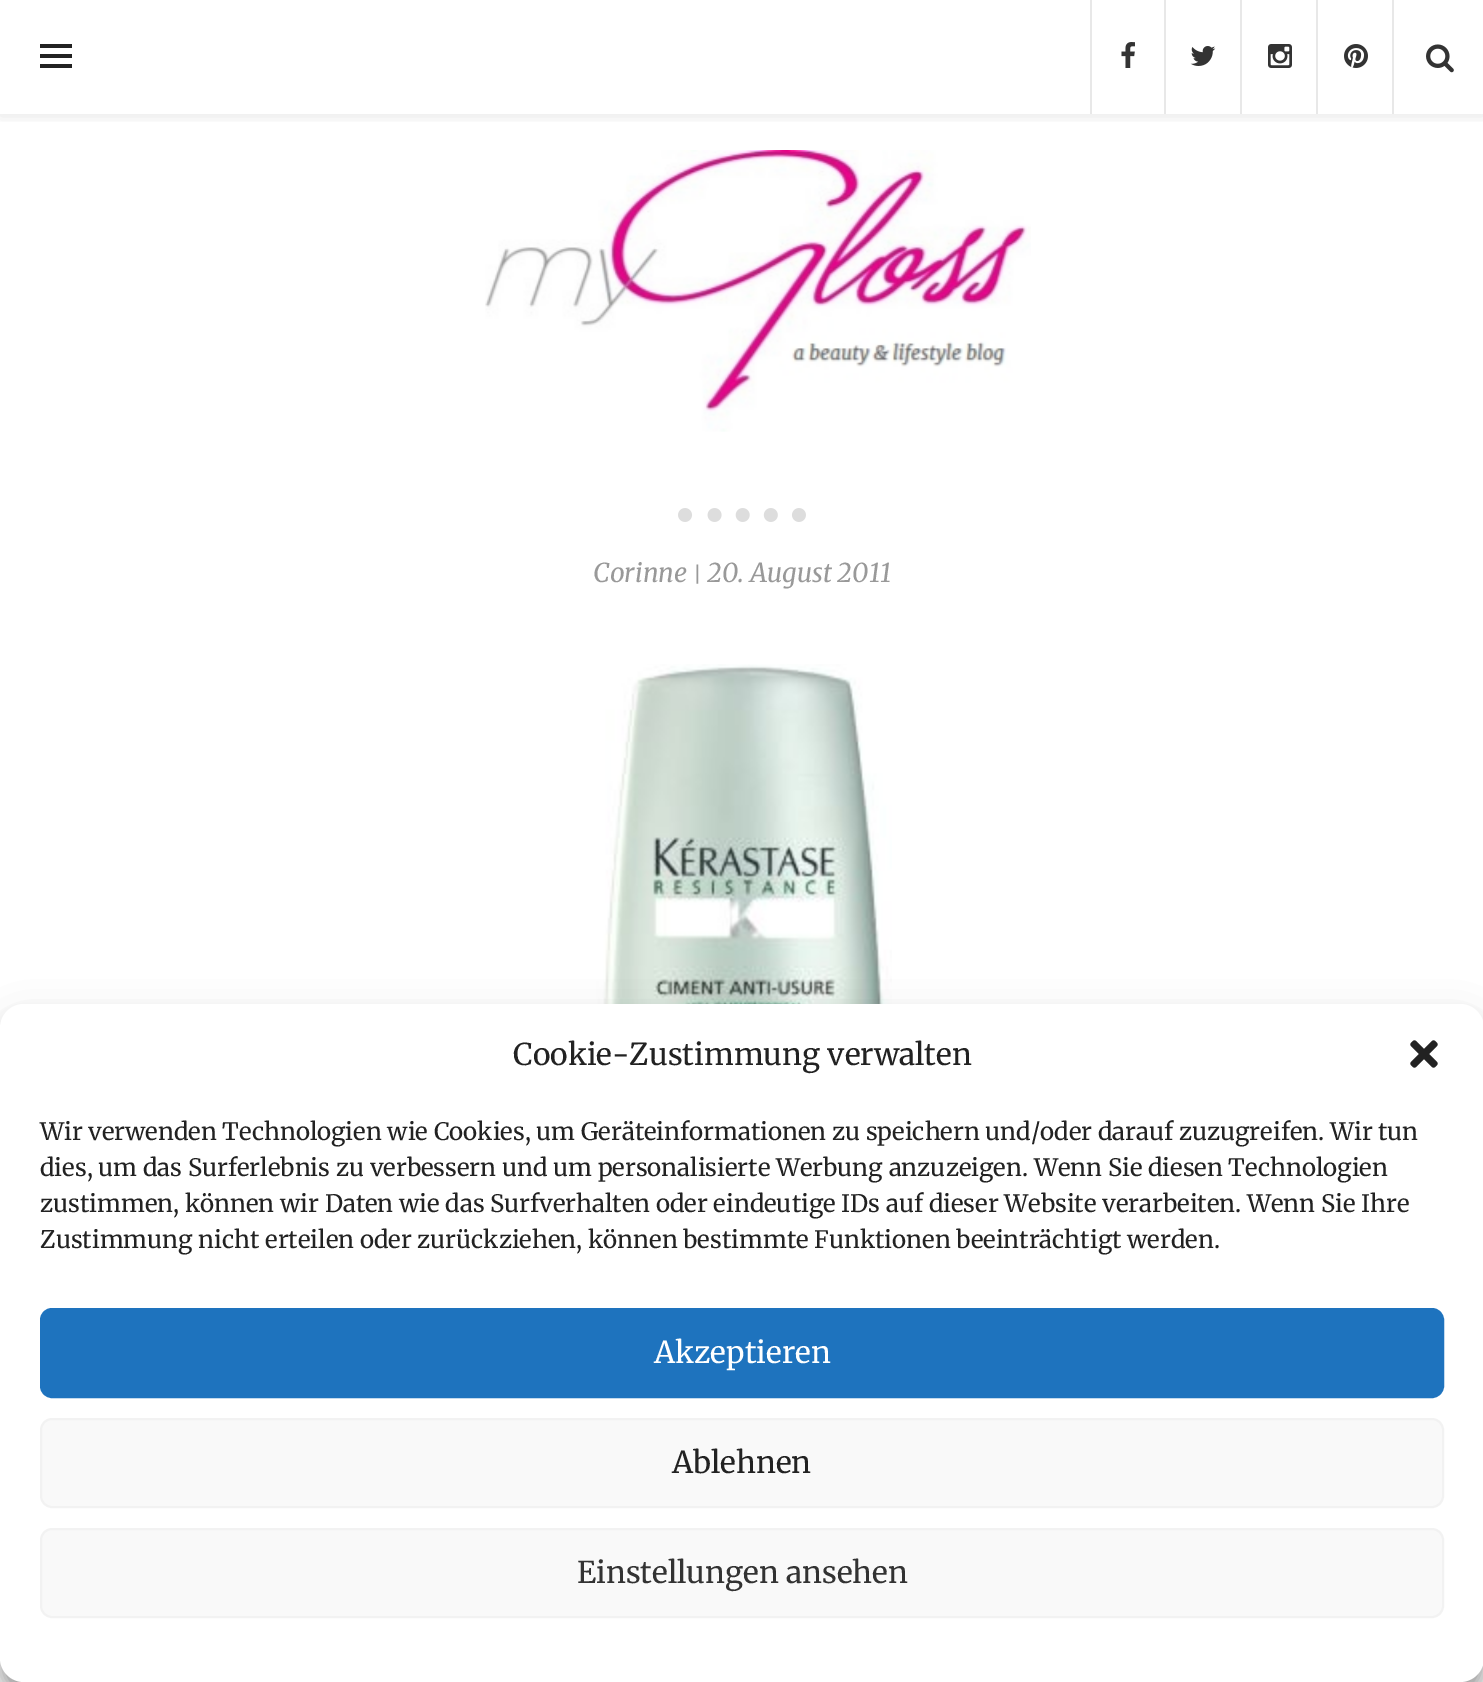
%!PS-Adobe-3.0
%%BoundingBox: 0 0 1483 1682
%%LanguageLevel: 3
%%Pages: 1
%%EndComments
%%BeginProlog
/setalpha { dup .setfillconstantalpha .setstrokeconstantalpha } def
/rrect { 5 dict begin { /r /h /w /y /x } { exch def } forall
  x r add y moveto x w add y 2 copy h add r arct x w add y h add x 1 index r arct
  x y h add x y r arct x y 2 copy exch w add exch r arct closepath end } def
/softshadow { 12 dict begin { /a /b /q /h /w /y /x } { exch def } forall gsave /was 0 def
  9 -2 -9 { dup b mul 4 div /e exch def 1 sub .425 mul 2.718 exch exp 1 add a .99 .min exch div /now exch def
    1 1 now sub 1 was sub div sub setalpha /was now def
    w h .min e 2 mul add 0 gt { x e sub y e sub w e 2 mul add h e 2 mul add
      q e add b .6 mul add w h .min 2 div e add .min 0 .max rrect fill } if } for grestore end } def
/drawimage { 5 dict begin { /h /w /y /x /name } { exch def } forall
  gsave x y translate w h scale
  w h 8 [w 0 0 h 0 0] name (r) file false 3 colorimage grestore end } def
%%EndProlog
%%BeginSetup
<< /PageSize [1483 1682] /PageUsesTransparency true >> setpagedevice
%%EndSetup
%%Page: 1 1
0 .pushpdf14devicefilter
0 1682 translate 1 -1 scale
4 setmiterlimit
1 setgray
0 0 1483 1682 rectfill
gsave
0 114 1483 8 rectclip
0 setgray
0 2 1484 114 0 7 0.1 softshadow
grestore
0.91 setgray
1164 0 2 114 rectfill
1090 0 2 114 rectfill
(images/1.raw) 1121 42 14 26 drawimage
1240 0 2 114 rectfill
(images/2.raw) 1190 46 26 20 drawimage
1316 0 2 114 rectfill
(images/3.raw) 1268 44 24 24 drawimage
1392 0 2 114 rectfill
(images/4.raw) 1344 44 24 24 drawimage
0.133 setgray
40 44 32 4 rectfill
40 54 32 4 rectfill
40 64 32 4 rectfill
(images/5.raw) 1426 44 28 29 drawimage
(images/6.raw) 485 150 546 282 drawimage
(images/7.raw) 678 508 128 14 drawimage
(images/8.raw) 596 664 296 340 drawimage
0 setgray
0 1016 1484 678 24 6 0.23 softshadow
0 1024 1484 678 24 20 0.19 softshadow
1 setgray
0 1004 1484 678 24 rrect fill
(images/9.raw) 1410 1040 28 28 drawimage
0.118 0.451 0.745 setrgbcolor
41 1309 1402 88 11 rrect gsave fill grestore
2 setlinewidth
stroke
0.976 setgray
41 1419 1402 88 11 rrect gsave fill grestore
0.949 setgray
stroke
0.976 setgray
41 1529 1402 88 11 rrect gsave fill grestore
0.949 setgray
stroke
/Merriweather-Italic [26 0 0 -26 0 0] selectfont
0.6 setgray
593 582 moveto (Corinne) show
/Merriweather-Italic [20 0 0 -20 0 0] selectfont
693 582 moveto (|) show
/Merriweather-Italic [26 0 0 -26 0 0] selectfont
707 582 moveto (20. August 2011) show
/Merriweather-Regular [30 0 0 -30 0 0] selectfont
0.133 setgray
513 1065 moveto (Cookie-Zustimmung verwalten) show
/Merriweather-Regular [24 0 0 -24 0 0] selectfont
40 1140 moveto (Wir verwenden Technologien wie Cookies, um Geräteinformationen zu speichern und/oder darauf zuzugreifen. Wir tun) show
40 1176 moveto (dies, um das Surferlebnis zu verbessern und um personalisierte Werbung anzuzeigen. Wenn Sie diesen Technologien) show
40 1212 moveto (zustimmen, können wir Daten wie das Surfverhalten oder eindeutige IDs auf dieser Website verarbeiten. Wenn Sie Ihre) show
40 1248 moveto (Zustimmung nicht erteilen oder zurückziehen, können bestimmte Funktionen beeinträchtigt werden.) show
/Merriweather-Regular [30 0 0 -30 0 0] selectfont
1 setgray
654 1363 moveto (Akzeptieren) show
0.133 setgray
672 1473 moveto (Ablehnen) show
0.2 setgray
577 1583 moveto (Einstellungen ansehen) show
.poppdf14devicefilter showpage
%%EOF
